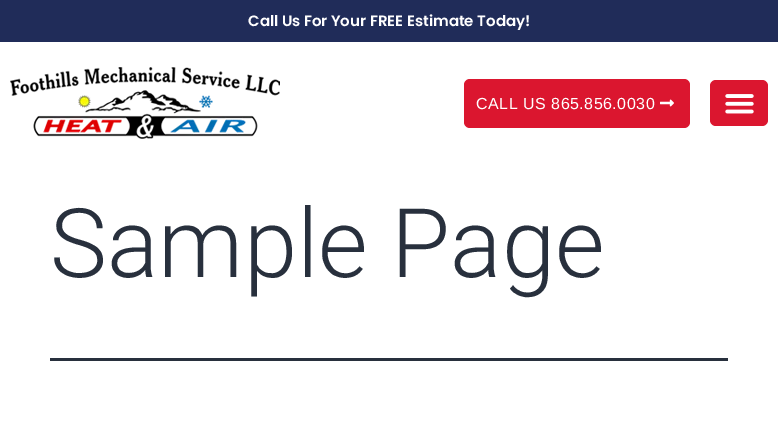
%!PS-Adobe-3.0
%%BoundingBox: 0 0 778 429
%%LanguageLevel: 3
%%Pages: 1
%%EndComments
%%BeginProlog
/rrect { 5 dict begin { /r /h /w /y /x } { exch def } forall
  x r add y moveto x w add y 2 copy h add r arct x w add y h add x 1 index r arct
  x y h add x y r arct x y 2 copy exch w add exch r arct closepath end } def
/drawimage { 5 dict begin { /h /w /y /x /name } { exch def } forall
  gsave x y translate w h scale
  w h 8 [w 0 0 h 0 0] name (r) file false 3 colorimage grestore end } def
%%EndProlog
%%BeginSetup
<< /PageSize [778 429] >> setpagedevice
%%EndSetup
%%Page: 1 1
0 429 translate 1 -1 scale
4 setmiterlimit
1 setgray
0 0 778 429 rectfill
0.125 0.173 0.349 setrgbcolor
0 0 778 42 rectfill
(images/1.raw) 10 67 270 72 drawimage
0.859 0.086 0.184 setrgbcolor
464 79 226 49 6 rrect fill
(images/2.raw) 660 99 14 8 drawimage
710 80 58 46 6 rrect fill
(images/3.raw) 725 94 29 20 drawimage
0.157 0.188 0.239 setrgbcolor
50 358 678 3 rectfill
/Poppins-SemiBold [15 0 0 -15 0 0] selectfont
1 setgray
248 26 moveto (Call Us For Your FREE Estimate Today!) show
/LiberationSans-Regular [16 0 0 -16 0 0] selectfont
476 109 moveto 0.5 0 (CALL US 865.856.0030) ashow
/Roboto-Light [96 0 0 -96 0 0] selectfont
0.157 0.188 0.239 setrgbcolor
50 277 moveto (Sample Page) show
showpage
%%EOF
